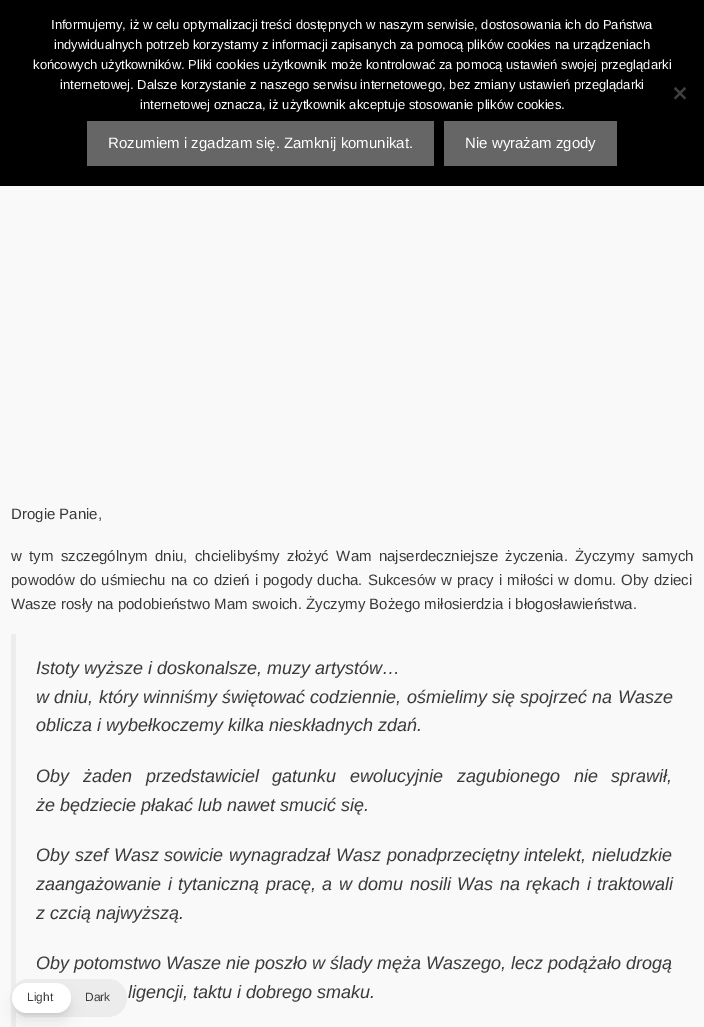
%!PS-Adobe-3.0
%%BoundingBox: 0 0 704 1027
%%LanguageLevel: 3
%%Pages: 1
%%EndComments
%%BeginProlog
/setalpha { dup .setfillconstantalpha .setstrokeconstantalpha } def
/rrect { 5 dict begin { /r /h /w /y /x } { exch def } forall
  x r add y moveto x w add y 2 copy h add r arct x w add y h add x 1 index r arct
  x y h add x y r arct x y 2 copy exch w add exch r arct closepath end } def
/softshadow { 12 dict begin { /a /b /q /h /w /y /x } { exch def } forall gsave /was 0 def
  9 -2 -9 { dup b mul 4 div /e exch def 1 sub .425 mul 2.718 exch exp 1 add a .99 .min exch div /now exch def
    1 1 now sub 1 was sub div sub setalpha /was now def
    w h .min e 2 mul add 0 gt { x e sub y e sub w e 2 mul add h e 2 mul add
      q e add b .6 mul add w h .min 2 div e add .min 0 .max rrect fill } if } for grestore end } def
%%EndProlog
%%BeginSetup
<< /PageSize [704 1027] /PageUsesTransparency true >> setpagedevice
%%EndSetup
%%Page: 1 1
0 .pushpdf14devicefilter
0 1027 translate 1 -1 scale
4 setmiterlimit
0.976 setgray
0 0 704 1027 rectfill
0 setgray
0 0 704 186 rectfill
0.251 setgray
newpath 684.5 87 moveto 686 88.5 lineto 675.5 99.5 lineto 674 98 lineto closepath fill
newpath 674 88.5 moveto 675.5 87 lineto 686 98 lineto 684.5 99.5 lineto closepath fill
0.4 setgray
87 121 347 45 rectfill
444 121 173 45 rectfill
0.929 setgray
11 634 5 393 rectfill
0.925 setgray
10 979 117 38 19 rrect fill
0 setgray
16 991 51 22 11 3 0.1 softshadow
15 996 53 24 12 7.5 0.1 softshadow
1 setgray
12 983 59 30 15 rrect fill
/LiberationSans-Regular [13 0 0 -13 0 0] selectfont
51 29 moveto (Informujemy, iż w celu optymalizacji treści dostępnych w naszym serwisie, dostosowania ich do Państwa) show
54 49 moveto (indywidualnych potrzeb korzystamy z informacji zapisanych za pomocą plików cookies na urządzeniach) show
33 69 moveto (końcowych użytkowników. Pliki cookies użytkownik może kontrolować za pomocą ustawień swojej przeglądarki) show
60 89 moveto (internetowej. Dalsze korzystanie z naszego serwisu internetowego, bez zmiany ustawień przeglądarki) show
140 109 moveto (internetowej oznacza, iż użytkownik akceptuje stosowanie plików cookies.) show
/LiberationSans-Regular [15 0 0 -15 0 0] selectfont
108 148 moveto (Rozumiem i zgadzam się. Zamknij komunikat.) show
465 148 moveto (Nie wyrażam zgody) show
0.227 setgray
11 519 moveto (Drogie Panie,) show
11 561 moveto 3.25 0 32 (w tym szczególnym dniu, chcielibyśmy złożyć Wam najserdeczniejsze życzenia. Życzymy samych) widthshow
11 585 moveto 1 0 32 (powodów do uśmiechu na co dzień i pogody ducha. Sukcesów w pracy i miłości w domu. Oby dzieci) widthshow
11 609 moveto (Wasze rosły na podobieństwo Mam swoich. Życzymy Bożego miłosierdzia i błogosławieństwa.) show
/LiberationSans-Italic [18 0 0 -18 0 0] selectfont
36 674 moveto (Istoty wyższe i doskonalsze, muzy artystów…) show
36 703 moveto 0.25 0 32 (w dniu, który winniśmy świętować codziennie, ośmielimy się spojrzeć na Wasze) widthshow
36 731 moveto (oblicza i wybełkoczemy kilka nieskładnych zdań.) show
36 782 moveto 8.75 0 32 (Oby żaden przedstawiciel gatunku ewolucyjnie zagubionego nie sprawił,) widthshow
36 811 moveto (że będziecie płakać lub nawet smucić się.) show
36 861 moveto 0.75 0 32 (Oby szef Wasz sowicie wynagradzał Wasz ponadprzeciętny intelekt, nieludzkie) widthshow
36 890 moveto 1.5 0 32 (zaangażowanie i tytaniczną pracę, a w domu nosili Was na rękach i traktowali) widthshow
36 919 moveto (z czcią najwyższą.) show
36 969 moveto (Oby potomstwo Wasze nie poszło w ślady męża Waszego, lecz podążało drogą) show
128 998 moveto (ligencji, taktu i dobrego smaku.) show
/LiberationSans-Regular [12 0 0 -12 0 0] selectfont
27 1001 moveto (Light) show
85 1001 moveto (Dark) show
.poppdf14devicefilter showpage
%%EOF
